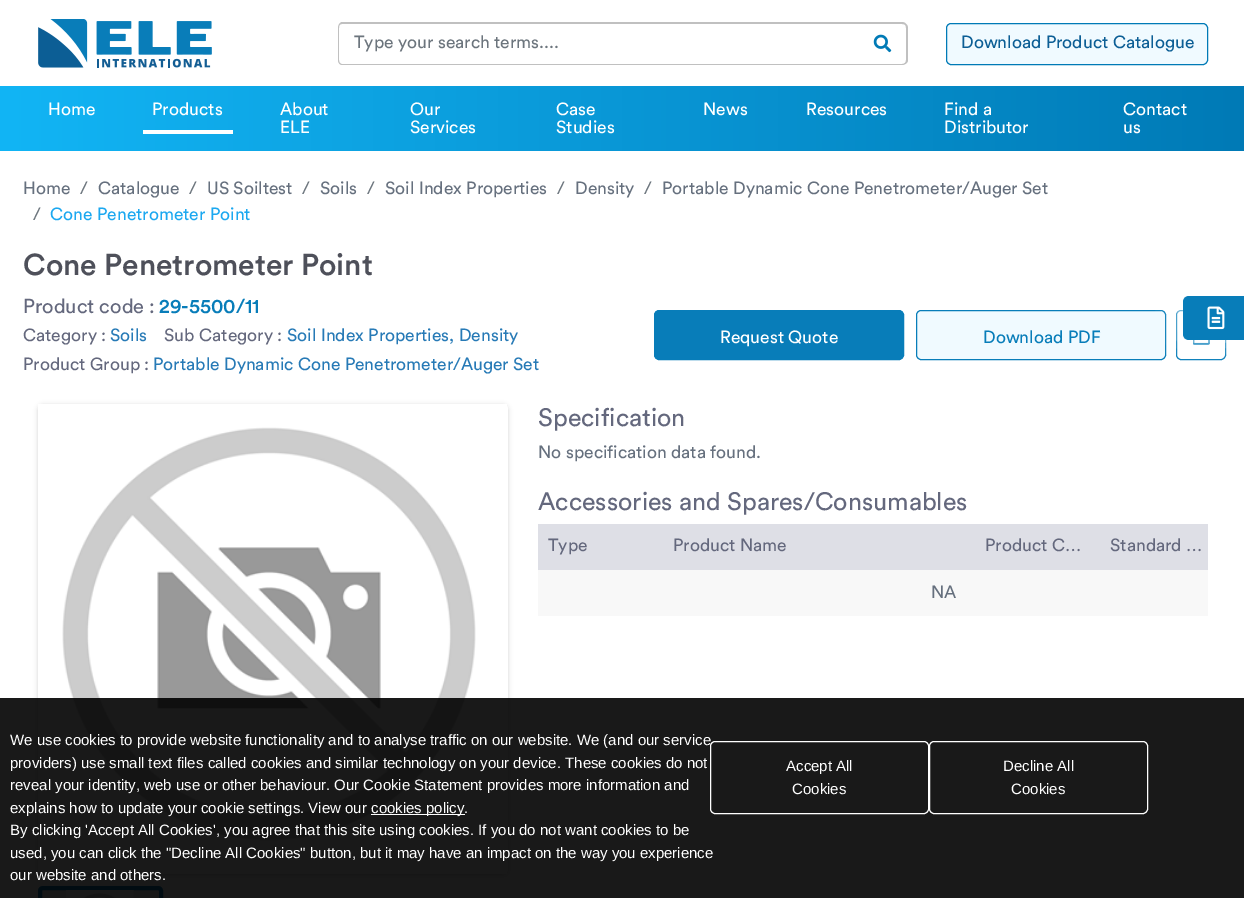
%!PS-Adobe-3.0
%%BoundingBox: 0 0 1244 898
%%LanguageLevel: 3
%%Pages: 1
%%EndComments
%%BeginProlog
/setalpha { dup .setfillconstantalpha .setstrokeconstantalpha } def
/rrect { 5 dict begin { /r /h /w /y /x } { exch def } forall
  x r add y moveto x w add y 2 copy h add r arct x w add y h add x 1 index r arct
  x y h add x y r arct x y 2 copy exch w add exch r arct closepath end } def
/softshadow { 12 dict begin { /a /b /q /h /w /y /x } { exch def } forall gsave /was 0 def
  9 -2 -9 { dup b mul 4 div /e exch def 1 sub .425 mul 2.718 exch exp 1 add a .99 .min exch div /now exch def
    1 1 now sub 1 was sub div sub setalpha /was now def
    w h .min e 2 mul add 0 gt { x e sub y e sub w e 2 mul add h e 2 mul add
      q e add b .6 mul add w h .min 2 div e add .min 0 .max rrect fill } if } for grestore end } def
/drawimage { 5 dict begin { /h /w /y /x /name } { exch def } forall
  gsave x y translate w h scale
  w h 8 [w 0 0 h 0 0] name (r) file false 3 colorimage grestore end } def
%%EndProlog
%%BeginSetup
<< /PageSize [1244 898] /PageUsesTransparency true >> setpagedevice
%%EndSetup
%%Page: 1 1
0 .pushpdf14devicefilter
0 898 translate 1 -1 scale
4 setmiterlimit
1 setgray
0 0 1244 898 rectfill
(images/1.raw) 38 19 174 49 drawimage
0.753 setgray
newpath 859 22 moveto 902 22 lineto 905 22 908 25 908 28 curveto 908 60 lineto 908 63 905 65 902 65 curveto 859 65 lineto closepath 859 24 moveto 902 24 lineto 905 24 906 25 906 28 curveto 906 60 lineto 906 62 905 64 902 64 curveto 859 64 lineto closepath eofill
newpath 342 22 moveto 860 22 lineto 860 65 lineto 342 65 lineto 340 65 338 63 338 60 curveto 338 28 lineto 338 25 340 22 342 22 curveto closepath 342 24 moveto 860 24 lineto 860 64 lineto 342 64 lineto 340 64 339 62 339 60 curveto 339 28 lineto 339 25 340 24 342 24 curveto closepath eofill
(images/2.raw) 873 34 19 19 drawimage
0.941 0.98 1 setrgbcolor
946.5 23.5 261 41 4.5 rrect gsave fill grestore
0 0.478 0.714 setrgbcolor
stroke
gsave newpath 0 86 moveto 1244 86 lineto 1244 151 lineto 0 151 lineto closepath clip newpath
<< /ShadingType 2 /ColorSpace /DeviceRGB /Coords [0 119 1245 119] /Extend [true true] /Function << /FunctionType 2 /Domain [0 1] /C0 [0.071 0.71 0.961] /C1 [0 0.478 0.714] /N 1 >> >> shfill grestore
1 setgray
143 130 90 4 rectfill
0.031 0.49 0.725 setrgbcolor
654.5 310.5 249 49 4.5 rrect gsave fill grestore
stroke
0.941 0.98 1 setrgbcolor
916.5 310.5 249 49 4.5 rrect gsave fill grestore
0.031 0.49 0.725 setrgbcolor
stroke
1176.5 310.5 49 49 4.5 rrect stroke
(images/3.raw) 1193 340 17 5 drawimage
1 setgray
1180 296 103 44 6 11 0.88 softshadow
0.031 0.49 0.725 setrgbcolor
newpath 1189 296 moveto 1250 296 lineto 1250 340 lineto 1189 340 lineto 1185.5 340 1183 337.5 1183 334 curveto 1183 302 lineto 1183 298.5 1185.5 296 1189 296 curveto closepath fill
(images/4.raw) 1207 306 18 24 drawimage
0 setgray
38 405 470 470 5 2.5 0.16 softshadow
1 setgray
38 404 470 470 5 rrect fill
(images/5.raw) 38 404 469 470 drawimage
0.937 setgray
40 888 121 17 3 rrect gsave fill grestore
0.031 0.49 0.725 setrgbcolor
4 setlinewidth
stroke
(images/6.raw) 66 890 68 8 drawimage
0.871 0.875 0.902 setrgbcolor
538 524 670 46 rectfill
0.973 setgray
538 570 670 46 rectfill
0.9 setalpha
0 setgray
0 698 1244 200 rectfill
1 setalpha
1 setgray
371 814 94 1 rectfill
1 setlinewidth
710.5 741.5 218 72 4.5 rrect stroke
929.5 741.5 218 72 4.5 rrect stroke
/Circular-Regular [17.5 0 0 -17.5 0 0] selectfont
0.424 0.459 0.49 setrgbcolor
354 48 moveto (Type your search terms....) show
0.047 0.369 0.584 setrgbcolor
961 48 moveto (Download Product Catalogue) show
1 setgray
48 115 moveto (Home) show
152 115 moveto (Products) show
280 115 moveto (About) show
280 133 moveto (ELE) show
410 115 moveto (Our) show
410 133 moveto (Services) show
556 115 moveto (Case) show
556 133 moveto (Studies) show
703 115 moveto (News) show
806 115 moveto (Resources) show
944 115 moveto (Find a) show
944 133 moveto (Distributor) show
1123 115 moveto (Contact) show
1123 133 moveto (us) show
0.4 0.439 0.494 setrgbcolor
23 194 moveto (Home) show
0.424 0.459 0.49 setrgbcolor
80 194 moveto (/) show
0.4 0.439 0.494 setrgbcolor
98 194 moveto (Catalogue) show
0.424 0.459 0.49 setrgbcolor
189 194 moveto (/) show
0.4 0.439 0.494 setrgbcolor
207 194 moveto (US Soiltest) show
0.424 0.459 0.49 setrgbcolor
302 194 moveto (/) show
0.4 0.439 0.494 setrgbcolor
320 194 moveto (Soils) show
0.424 0.459 0.49 setrgbcolor
367 194 moveto (/) show
0.4 0.439 0.494 setrgbcolor
385 194 moveto (Soil Index Properties) show
0.424 0.459 0.49 setrgbcolor
557 194 moveto (/) show
0.4 0.439 0.494 setrgbcolor
575 194 moveto (Density) show
0.424 0.459 0.49 setrgbcolor
644 194 moveto (/) show
0.4 0.439 0.494 setrgbcolor
662 194 moveto (Portable Dynamic Cone Penetrometer/Auger Set) show
0.424 0.459 0.49 setrgbcolor
33 220 moveto (/) show
0.11 0.659 0.941 setrgbcolor
50 220 moveto (Cone Penetrometer Point) show
/Circular-Medium [30 0 0 -30 0 0] selectfont
0.306 0.314 0.353 setrgbcolor
23 275 moveto (Cone Penetrometer Point) show
/Circular-Regular [20 0 0 -20 0 0] selectfont
0.392 0.408 0.49 setrgbcolor
23 313 moveto (Product code :) show
/Circular-Medium [20 0 0 -20 0 0] selectfont
0.031 0.49 0.725 setrgbcolor
159 313 moveto (29-5500/11) show
/Circular-Regular [17.5 0 0 -17.5 0 0] selectfont
0.392 0.408 0.49 setrgbcolor
23 341 moveto (Category :) show
0.153 0.478 0.714 setrgbcolor
110 341 moveto (Soils) show
0.392 0.408 0.49 setrgbcolor
164 341 moveto (Sub Category :) show
0.153 0.478 0.714 setrgbcolor
287 341 moveto (Soil Index Properties, Density) show
0.392 0.408 0.49 setrgbcolor
23 370 moveto (Product Group :) show
0.153 0.478 0.714 setrgbcolor
153 370 moveto (Portable Dynamic Cone Penetrometer/Auger Set) show
1 setgray
720 343 moveto (Request Quote) show
0.031 0.49 0.725 setrgbcolor
983 343 moveto (Download PDF) show
/Circular-Regular [25 0 0 -25 0 0] selectfont
0.392 0.408 0.49 setrgbcolor
538 426 moveto (Specification) show
/Circular-Regular [17.5 0 0 -17.5 0 0] selectfont
0.4 0.439 0.494 setrgbcolor
538 458 moveto (No specification data found.) show
/Circular-Regular [25 0 0 -25 0 0] selectfont
0.392 0.408 0.49 setrgbcolor
538 510 moveto (Accessories and Spares/Consumables) show
/Circular-Regular [17.5 0 0 -17.5 0 0] selectfont
548 551 moveto (Type) show
673 551 moveto (Product Name) show
985 551 moveto (Product C…) show
1110 551 moveto (Standard …) show
0.4 0.439 0.494 setrgbcolor
931 598 moveto (NA) show
/LiberationSans-Regular [15 0 0 -15 0 0] selectfont
1 setgray
10 745 moveto (We use cookies to provide website functionality and to analyse traffic on our website. We \(and our service) show
10 768 moveto (providers\) use small text files called cookies and similar technology on your device. These cookies do not) show
10 790 moveto (reveal your identity, web use or other behaviour. Our Cookie Statement provides more information and) show
10 813 moveto (explains how to update your cookie settings. View our) show
371 813 moveto (cookies policy.) show
10 835 moveto (By clicking 'Accept All Cookies', you agree that this site using cookies. If you do not want cookies to be) show
10 858 moveto (used, you can click the "Decline All Cookies" button, but it may have an impact on the way you experience) show
10 880 moveto (our website and others.) show
786 771 moveto (Accept All) show
792 794 moveto (Cookies) show
1003 771 moveto (Decline All) show
1011 794 moveto (Cookies) show
.poppdf14devicefilter showpage
%%EOF
